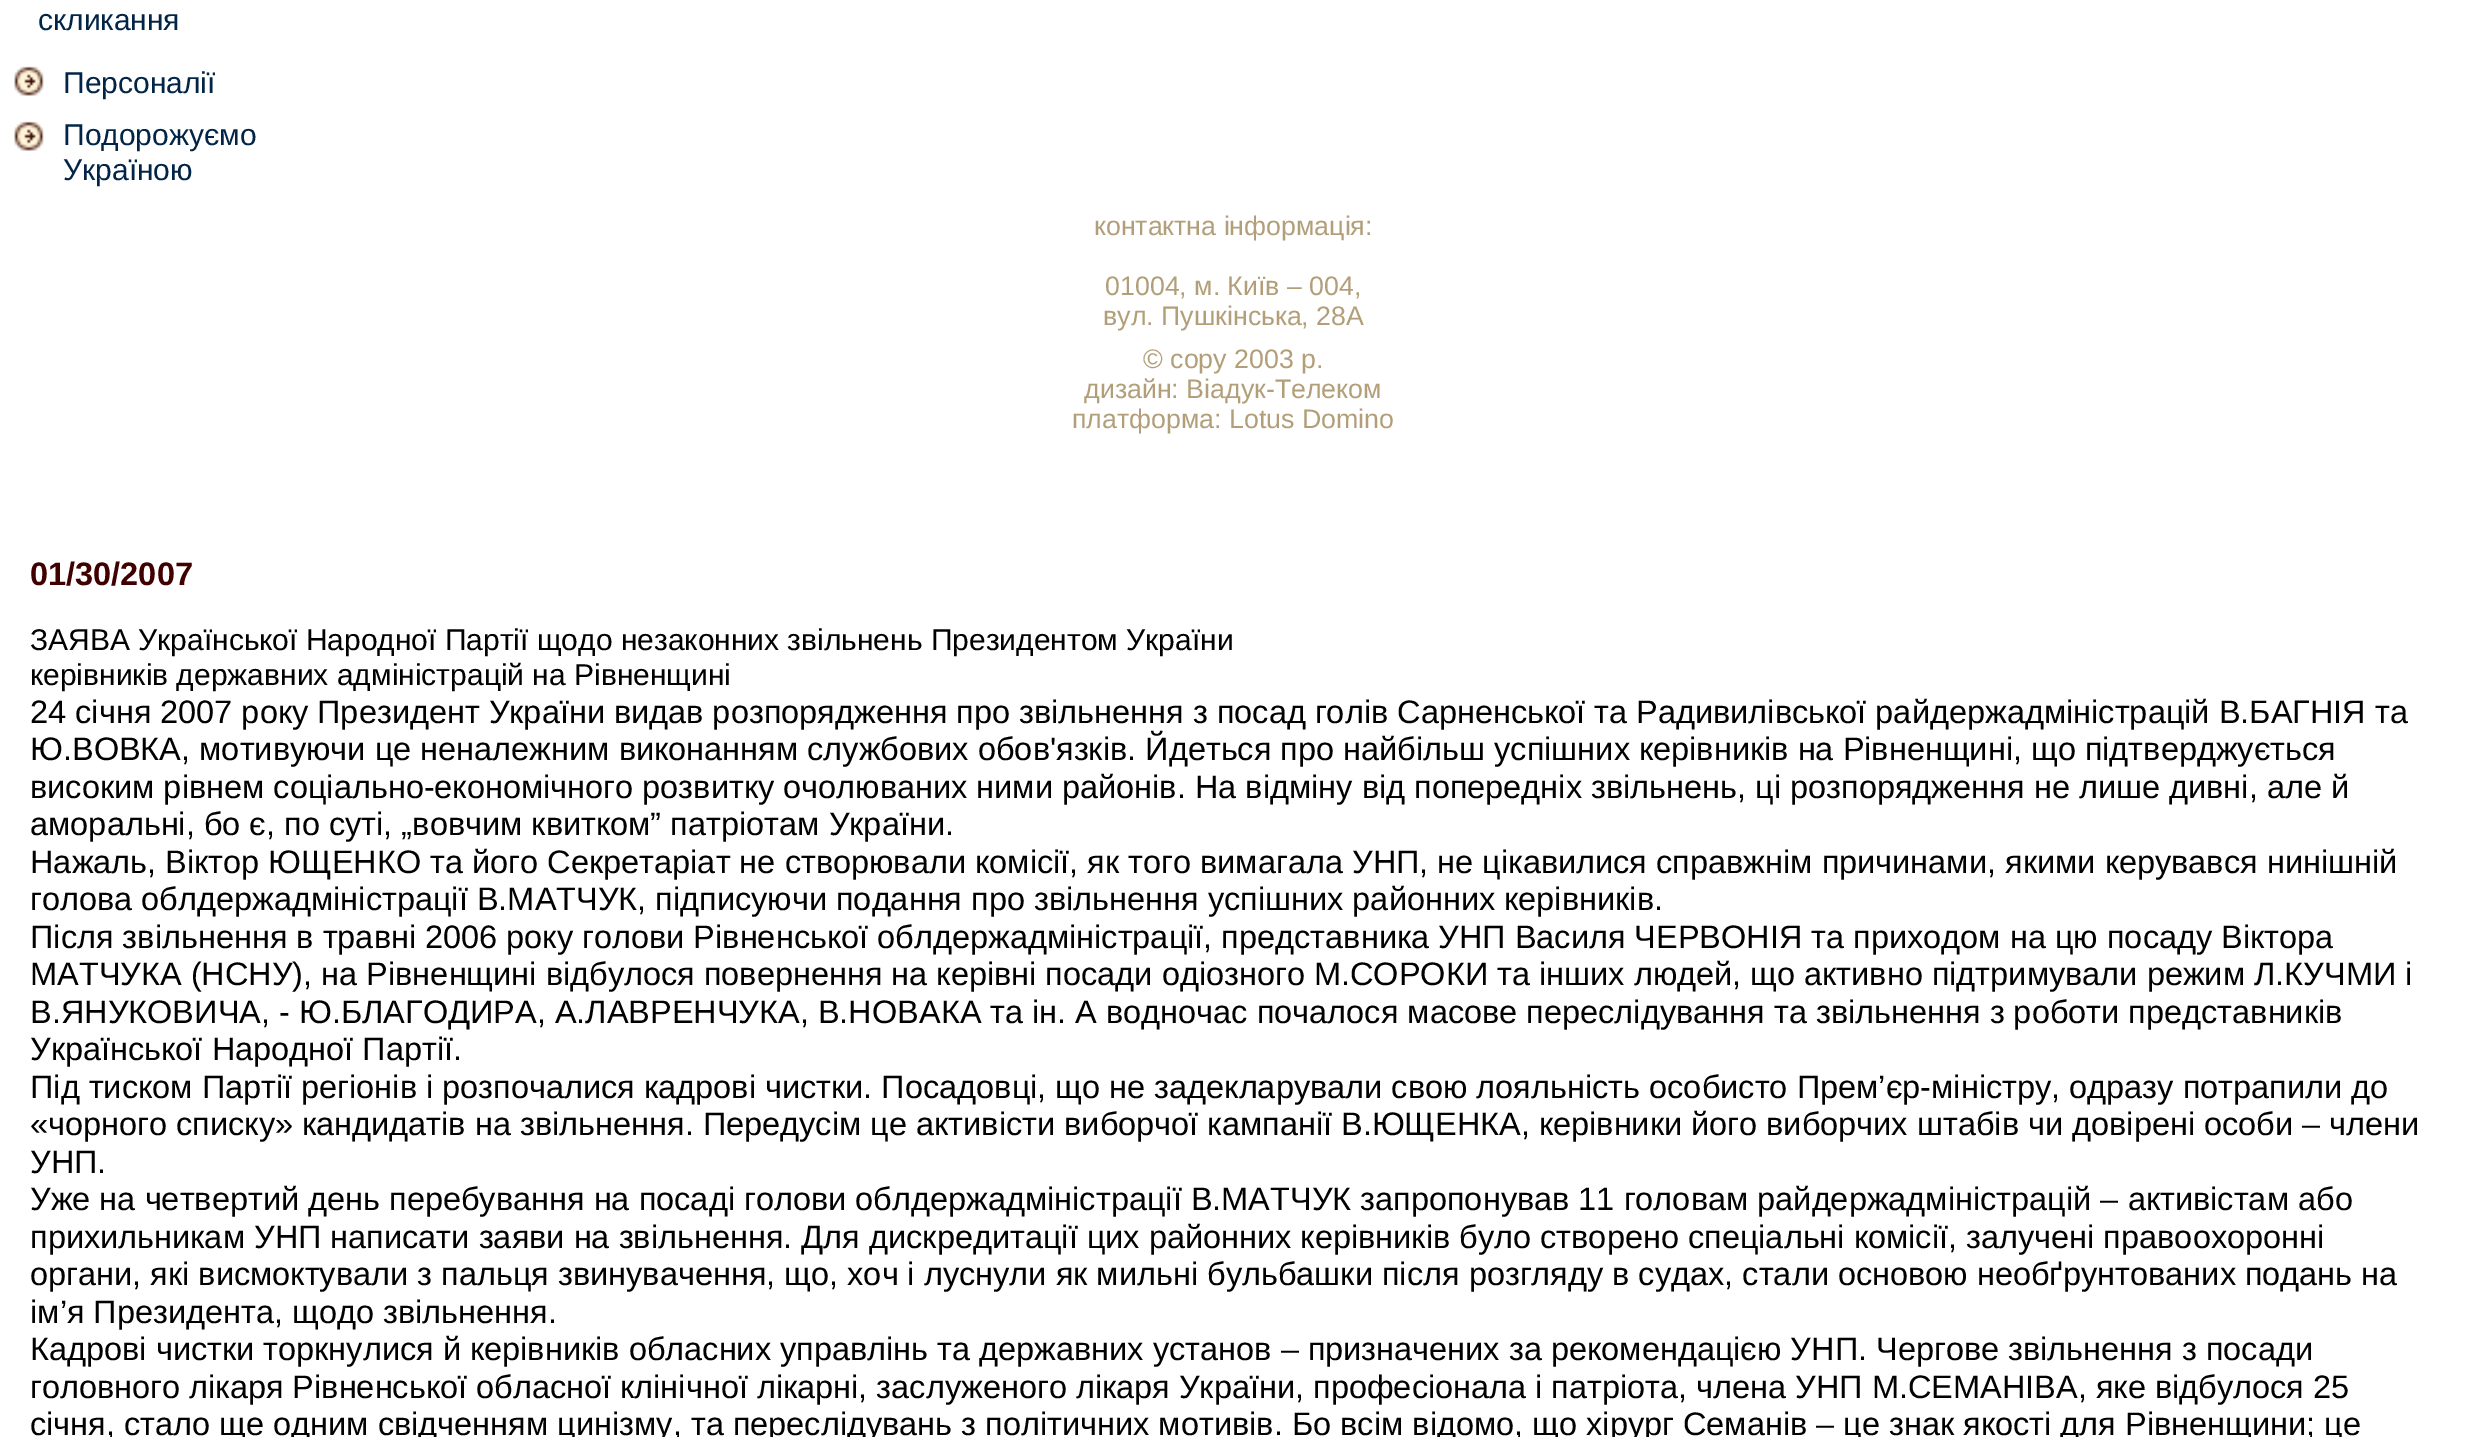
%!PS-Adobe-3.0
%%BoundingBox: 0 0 2465 1437
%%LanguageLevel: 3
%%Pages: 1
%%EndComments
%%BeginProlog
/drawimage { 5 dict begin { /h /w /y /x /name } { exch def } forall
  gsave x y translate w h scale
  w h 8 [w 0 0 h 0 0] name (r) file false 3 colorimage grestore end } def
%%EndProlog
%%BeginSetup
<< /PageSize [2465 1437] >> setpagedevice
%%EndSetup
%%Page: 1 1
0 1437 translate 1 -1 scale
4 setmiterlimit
1 setgray
0 0 2465 1437 rectfill
(images/1.raw) 14 66 30 30 drawimage
(images/1.raw) 14 121 30 30 drawimage
/LiberationSans-Regular [30 0 0 -30 0 0] selectfont
0.004 0.141 0.278 setrgbcolor
38 30 moveto (скликання) show
63 93 moveto (Персоналії) show
63 145 moveto (Подорожуємо) show
63 180 moveto (Україною) show
/LiberationSans-Regular [26.75 0 0 -26.75 0 0] selectfont
0.698 0.624 0.475 setrgbcolor
1094 235 moveto (контактна інформація:) show
1105 295 moveto (01004, м. Київ – 004,) show
1103 325 moveto (вул. Пушкінська, 28А) show
1143 368 moveto (© copy 2003 р.) show
1084 398 moveto (дизайн: Віадук-Телеком) show
1072 428 moveto (платформа: Lotus Domino) show
/LiberationSans-Bold [32.5 0 0 -32.5 0 0] selectfont
0.251 0 0 setrgbcolor
30 585 moveto (01/30/2007) show
/LiberationSans-Regular [30 0 0 -30 0 0] selectfont
0 setgray
30 650 moveto (ЗАЯВА Української Народної Партії щодо незаконних звільнень Президентом України) show
30 685 moveto (керівників державних адміністрацій на Рівненщині) show
/LiberationSans-Regular [32.5 0 0 -32.5 0 0] selectfont
30 723 moveto (24 січня 2007 року Президент України видав розпорядження про звільнення з посад голів Сарненської та Радивилівської райдержадміністрацій В.БАГНІЯ та) show
30 760 moveto (Ю.ВОВКА, мотивуючи це неналежним виконанням службових обов'язків. Йдеться про найбільш успішних керівників на Рівненщині, що підтверджується) show
30 798 moveto (високим рівнем соціально-економічного розвитку очолюваних ними районів. На відміну від попередніх звільнень, ці розпорядження не лише дивні, але й) show
30 835 moveto (аморальні, бо є, по суті, „вовчим квитком” патріотам України.) show
30 873 moveto (Нажаль, Віктор ЮЩЕНКО та його Секретаріат не створювали комісії, як того вимагала УНП, не цікавилися справжнім причинами, якими керувався нинішній) show
30 910 moveto (голова облдержадміністрації В.МАТЧУК, підписуючи подання про звільнення успішних районних керівників.) show
30 948 moveto (Після звільнення в травні 2006 року голови Рівненської облдержадміністрації, представника УНП Василя ЧЕРВОНІЯ та приходом на цю посаду Віктора) show
30 985 moveto (МАТЧУКА \(НСНУ\), на Рівненщині відбулося повернення на керівні посади одіозного М.СОРОКИ та інших людей, що активно підтримували режим Л.КУЧМИ і) show
30 1023 moveto (В.ЯНУКОВИЧА, - Ю.БЛАГОДИРА, А.ЛАВРЕНЧУКА, В.НОВАКА та ін. А водночас почалося масове переслідування та звільнення з роботи представників) show
30 1060 moveto (Української Народної Партії.) show
30 1098 moveto (Під тиском Партії регіонів і розпочалися кадрові чистки. Посадовці, що не задекларували свою лояльність особисто Прем’єр-міністру, одразу потрапили до) show
30 1135 moveto («чорного списку» кандидатів на звільнення. Передусім це активісти виборчої кампанії В.ЮЩЕНКА, керівники його виборчих штабів чи довірені особи – члени) show
30 1173 moveto (УНП.) show
30 1210 moveto (Уже на четвертий день перебування на посаді голови облдержадміністрації В.МАТЧУК запропонував 11 головам райдержадміністрацій – активістам або) show
30 1248 moveto (прихильникам УНП написати заяви на звільнення. Для дискредитації цих районних керівників було створено спеціальні комісії, залучені правоохоронні) show
30 1285 moveto (органи, які висмоктували з пальця звинувачення, що, хоч і луснули як мильні бульбашки після розгляду в судах, стали основою необґрунтованих подань на) show
30 1323 moveto (ім’я Президента, щодо звільнення.) show
30 1360 moveto (Кадрові чистки торкнулися й керівників обласних управлінь та державних установ – призначених за рекомендацією УНП. Чергове звільнення з посади) show
30 1398 moveto (головного лікаря Рівненської обласної клінічної лікарні, заслуженого лікаря України, професіонала і патріота, члена УНП М.СЕМАНІВА, яке відбулося 25) show
30 1435 moveto (січня, стало ще одним свідченням цинізму, та переслідувань з політичних мотивів. Бо всім відомо, що хірург Семанів – це знак якості для Рівненщини; це) show
showpage
%%EOF
